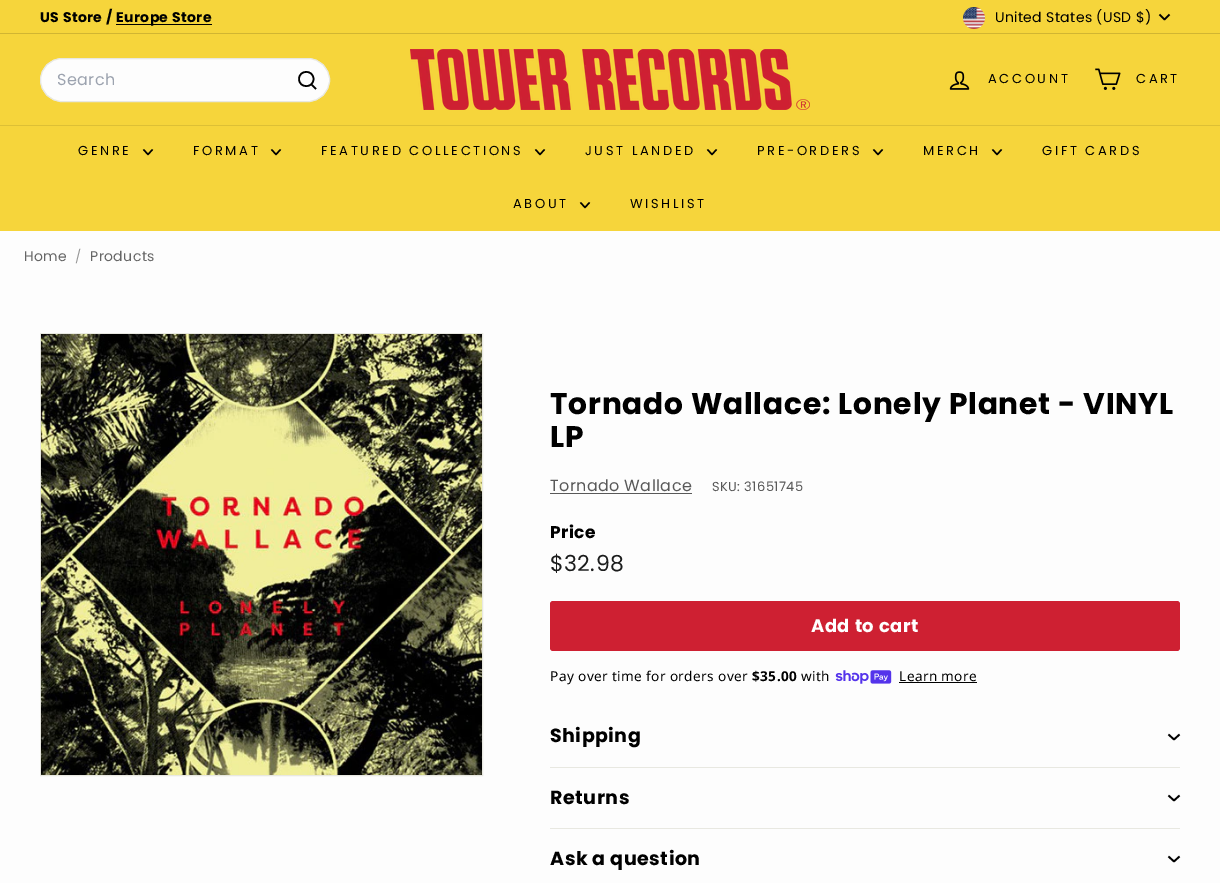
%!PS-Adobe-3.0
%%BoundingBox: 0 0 1220 883
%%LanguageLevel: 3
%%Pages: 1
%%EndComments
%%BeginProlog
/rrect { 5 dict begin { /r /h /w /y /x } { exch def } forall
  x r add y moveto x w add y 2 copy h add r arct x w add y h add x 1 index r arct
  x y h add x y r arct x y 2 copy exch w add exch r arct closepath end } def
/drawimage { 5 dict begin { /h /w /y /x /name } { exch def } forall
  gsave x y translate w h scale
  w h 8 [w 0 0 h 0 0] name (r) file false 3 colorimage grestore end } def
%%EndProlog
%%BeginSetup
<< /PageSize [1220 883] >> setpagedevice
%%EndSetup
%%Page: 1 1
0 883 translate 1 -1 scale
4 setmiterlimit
0.992 setgray
0 0 1220 883 rectfill
0.965 0.835 0.231 setrgbcolor
0 0 1220 33 rectfill
0 setgray
116 24 96 1 rectfill
(images/1.raw) 963 7 22 22 drawimage
1.6 setlinewidth
1 setlinejoin
newpath 1159.5 14.5 moveto 1164.5 19.5 lineto 1169.5 14.5 lineto stroke
0.82 0.71 0.196 setrgbcolor
0 33 1220 1 rectfill
0.965 0.835 0.231 setrgbcolor
0 34 1220 91 rectfill
0.992 setgray
40.5 58.5 289 43 21.5 rrect gsave fill grestore
0.91 0.91 0.882 setrgbcolor
1 setlinewidth
0 setlinejoin
stroke
0 setgray
1.6 setlinewidth
1 setlinejoin
newpath 313.5 79 moveto 313.5 88.5 299 88.5 299 79 curveto 299 69.5 313.5 69.5 313.5 79 curveto 316 89 moveto 311.5 84.5 lineto stroke
(images/2.raw) 410 49 400 61 drawimage
(images/3.raw) 949 71 21 19 drawimage
(images/4.raw) 1095 68 26 22 drawimage
0.965 0.835 0.231 setrgbcolor
0 126 1220 105 rectfill
0.867 0.753 0.208 setrgbcolor
0 125 1220 1 rectfill
0 setgray
1.4 setlinewidth
newpath 143.5 149.5 moveto 148 154.5 lineto 152.5 149.5 lineto stroke
newpath 271.5 149.5 moveto 276 154.5 lineto 280.5 149.5 lineto stroke
newpath 535.5 149.5 moveto 540 154.5 lineto 544.5 149.5 lineto stroke
newpath 707.5 149.5 moveto 712 154.5 lineto 716.5 149.5 lineto stroke
newpath 873.5 149.5 moveto 878 154.5 lineto 882.5 149.5 lineto stroke
newpath 992.5 149.5 moveto 997 154.5 lineto 1001.5 149.5 lineto stroke
newpath 580.5 202.5 moveto 585 207.5 lineto 589.5 202.5 lineto stroke
0.91 0.91 0.882 setrgbcolor
1 setlinewidth
0 setlinejoin
40.5 333.5 442 442 rectstroke
(images/5.raw) 41 334 441 441 drawimage
0.349 setgray
550 493 142 1 rectfill
0.808 0.125 0.196 setrgbcolor
550 601 630 50 3 rrect fill
(images/6.raw) 835 670 57 14 drawimage
0 setgray
899 682 78 1 rectfill
0.91 0.91 0.882 setrgbcolor
550 767 630 1 rectfill
0 setgray
1.7 setlinewidth
1 setlinejoin
newpath 1168.5 734.5 moveto 1174 739.5 lineto 1179.5 734.5 lineto stroke
0.91 0.91 0.882 setrgbcolor
550 828 630 1 rectfill
0 setgray
newpath 1168.5 795.5 moveto 1174 800.5 lineto 1179.5 795.5 lineto stroke
newpath 1168.5 856.5 moveto 1174 861.5 lineto 1179.5 856.5 lineto stroke
/Poppins-Bold [14 0 0 -14 0 0] selectfont
40 22 moveto 0.4 0 (US Store /) ashow
116 22 moveto 0.4 0 (Europe Store) ashow
/Poppins-Regular [14 0 0 -14 0 0] selectfont
995 22 moveto 0.35 0 (United States \(USD $\)) ashow
/Poppins-Regular [16 0 0 -16 0 0] selectfont
0.612 0.639 0.686 setrgbcolor
57 85 moveto 0.4 0 (Search) ashow
/Poppins-Regular [13 0 0 -13 0 0] selectfont
0 setgray
988 83 moveto 2.6 0 (ACCOUNT) ashow
1136 83 moveto 2.6 0 (CART) ashow
78 155 moveto 2.6 0 (GENRE) ashow
193 155 moveto 2.6 0 (FORMAT) ashow
321 155 moveto 2.6 0 (FEATURED COLLECTIONS) ashow
585 155 moveto 2.6 0 (JUST LANDED) ashow
757 155 moveto 2.6 0 (PRE-ORDERS) ashow
923 155 moveto 2.6 0 (MERCH) ashow
1042 155 moveto 2.6 0 (GIFT CARDS) ashow
513 208 moveto 2.6 0 (ABOUT) ashow
630 208 moveto 2.6 0 (WISHLIST) ashow
/Poppins-Regular [14 0 0 -14 0 0] selectfont
0.4 setgray
24 261 moveto 0.4 0 (Home) ashow
/Poppins-Regular [13 0 0 -13 0 0] selectfont
0.6 setgray
75 261 moveto 0.4 0 (/) ashow
/Poppins-Regular [14 0 0 -14 0 0] selectfont
0.4 setgray
90 261 moveto 0.4 0 (Products) ashow
/Poppins-Bold [29.75 0 0 -29.75 0 0] selectfont
0 setgray
550 414 moveto 0.75 0 (Tornado Wallace: Lonely Planet - VINYL) ashow
550 447 moveto 0.75 0 (LP) ashow
/Poppins-Regular [16 0 0 -16 0 0] selectfont
0.349 setgray
550 491 moveto 0.4 0 (Tornado Wallace) ashow
/Poppins-Regular [13 0 0 -13 0 0] selectfont
712 491 moveto 0.4 0 (SKU: 31651745) ashow
/Poppins-Bold [17 0 0 -17 0 0] selectfont
0 setgray
550 538 moveto 0.4 0 (Price) ashow
/Poppins-Regular [22 0 0 -22 0 0] selectfont
0.11 0.114 0.114 setrgbcolor
550 571 moveto 0.4 0 ($32.98) ashow
/Poppins-Bold [18 0 0 -18 0 0] selectfont
1 setgray
811 632 moveto 0.5 0 (Add to cart) ashow
/NotoSans-Regular [13.6 0 0 -13.6 0 0] selectfont
0 setgray
550 681 moveto 0.4 0 (Pay over time for orders over) ashow
/NotoSans-Bold [13.6 0 0 -13.6 0 0] selectfont
752 681 moveto 0.4 0 ($35.00) ashow
/NotoSans-Regular [13.6 0 0 -13.6 0 0] selectfont
801 681 moveto 0.4 0 (with) ashow
899 681 moveto 0.4 0 (Learn more) ashow
/Poppins-Bold [19 0 0 -19 0 0] selectfont
550 742 moveto 0.5 0 (Shipping) ashow
550 804 moveto 0.5 0 (Returns) ashow
550 865 moveto 0.5 0 (Ask a question) ashow
showpage
%%EOF
